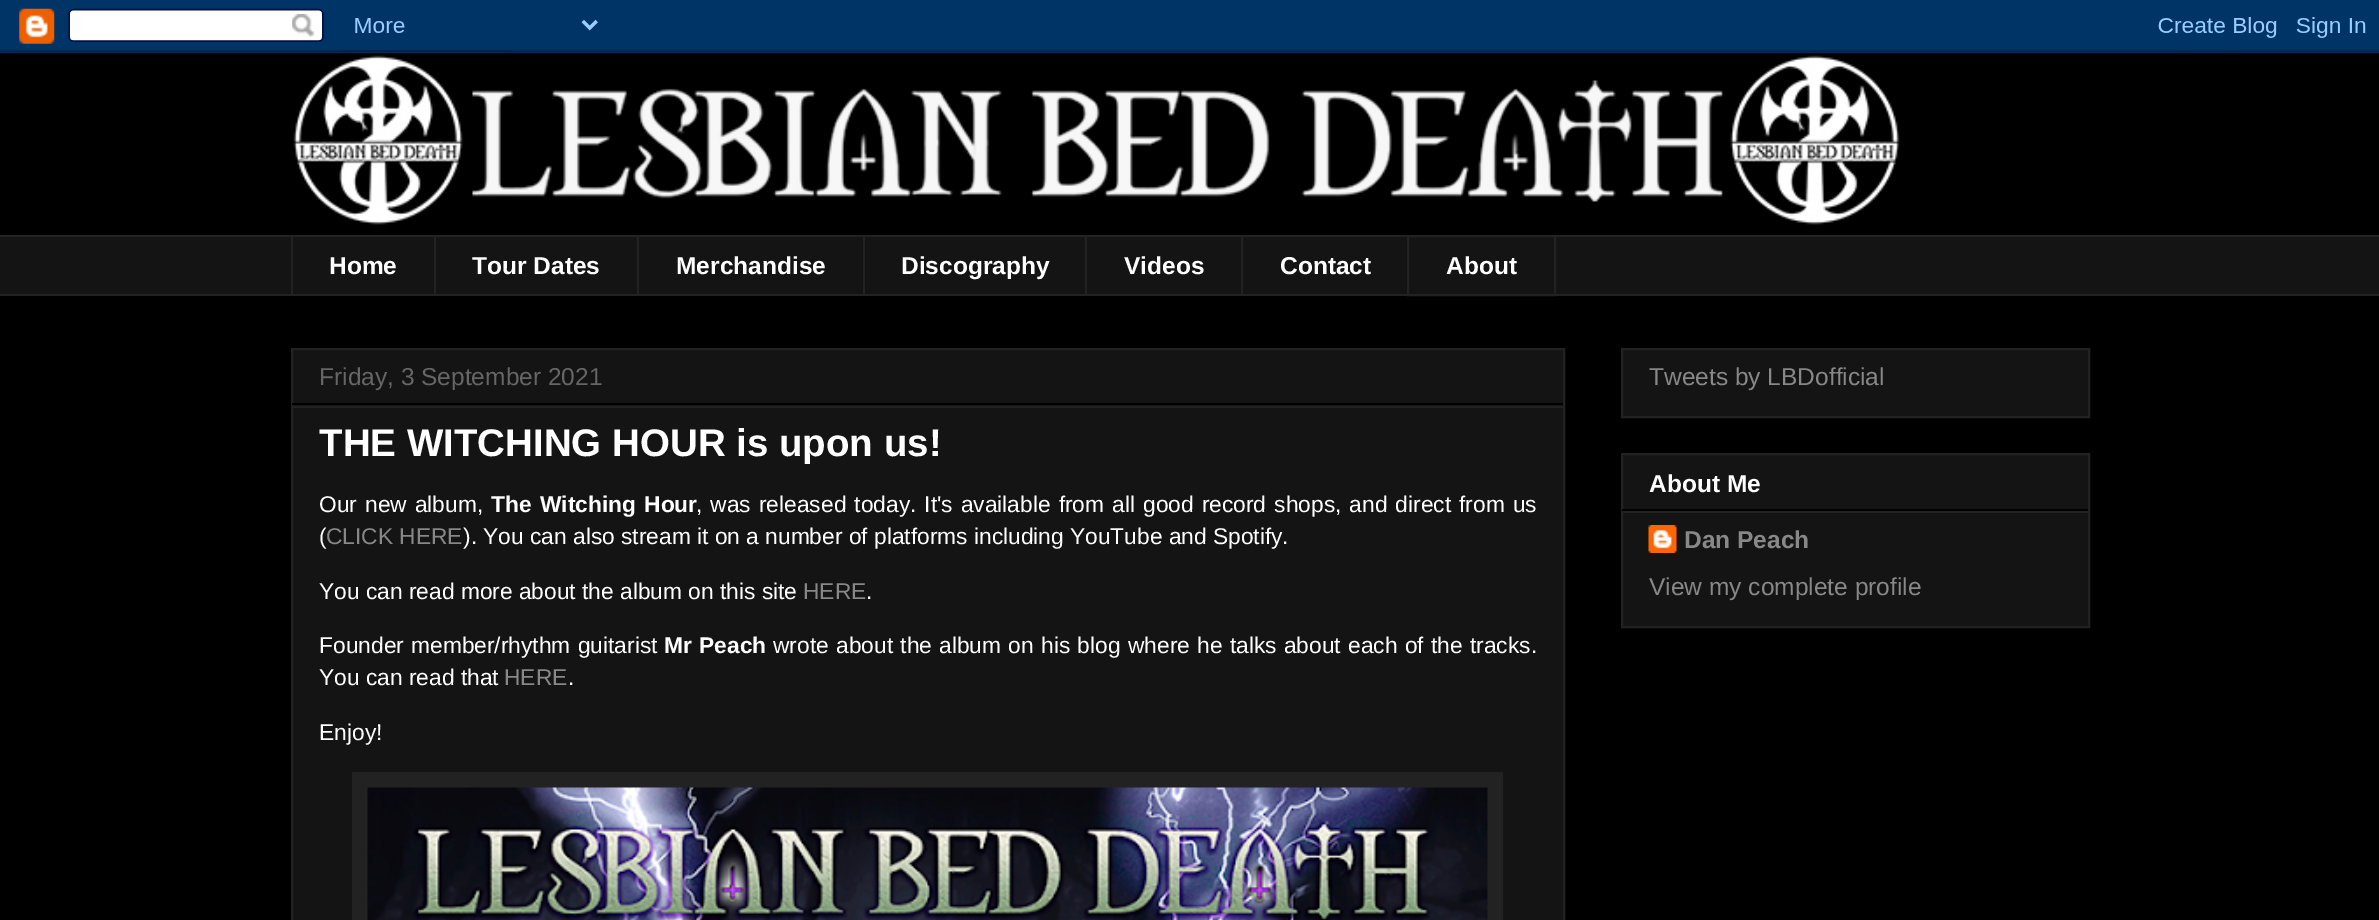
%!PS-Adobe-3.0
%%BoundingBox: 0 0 2379 920
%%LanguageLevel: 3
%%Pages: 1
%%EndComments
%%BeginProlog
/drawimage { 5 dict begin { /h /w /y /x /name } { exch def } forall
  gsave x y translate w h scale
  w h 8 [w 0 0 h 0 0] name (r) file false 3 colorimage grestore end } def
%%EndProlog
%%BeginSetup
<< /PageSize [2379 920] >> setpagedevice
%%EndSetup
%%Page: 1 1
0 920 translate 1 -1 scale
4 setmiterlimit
0 setgray
0 0 2379 920 rectfill
(images/1.raw) 0 0 2379 53 drawimage
(images/2.raw) 293 55 1607 170 drawimage
0.078 setgray
0 237 2379 57 rectfill
0.133 setgray
0 235 2379 2 rectfill
291 235 2 61 rectfill
434 235 2 61 rectfill
637 235 2 61 rectfill
863 235 2 61 rectfill
1085 235 2 61 rectfill
1241 235 2 61 rectfill
2 setlinewidth
1408 236 147 59 rectstroke
0 294 2379 2 rectfill
0.078 setgray
newpath 292 349 moveto 1564 349 lineto 1564 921 lineto 292 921 lineto closepath gsave fill grestore
0.133 setgray
stroke
0 setgray
292 403 1271 2 rectfill
0.133 setgray
292 406 1271 2 rectfill
352 772 1151 148 rectfill
(images/3.raw) 367 787 1121 133 drawimage
0.078 setgray
newpath 1622 349 moveto 2089 349 lineto 2089 417 lineto 1622 417 lineto closepath gsave fill grestore
0.133 setgray
stroke
0.078 setgray
newpath 1622 454 moveto 2089 454 lineto 2089 627 lineto 1622 627 lineto closepath gsave fill grestore
0.133 setgray
stroke
0 setgray
1622 509 466 2 rectfill
0.133 setgray
1622 511 466 2 rectfill
(images/4.raw) 1648 525 29 28 drawimage
/LiberationSans-Bold [24.5 0 0 -24.5 0 0] selectfont
1 setgray
329 274 moveto (Home) show
472 274 moveto (Tour Dates) show
676 274 moveto (Merchandise) show
901 274 moveto (Discography) show
1124 274 moveto (Videos) show
1280 274 moveto (Contact) show
1446 274 moveto (About) show
/LiberationSans-Regular [24.5 0 0 -24.5 0 0] selectfont
0.4 setgray
319 385 moveto (Friday, 3 September 2021) show
/LiberationSans-Bold [38.5 0 0 -38.5 0 0] selectfont
1 setgray
319 456 moveto (THE WITCHING HOUR is upon us!) show
/LiberationSans-Regular [22.75 0 0 -22.75 0 0] selectfont
319 512 moveto 1.75 0 32 (Our new album,) widthshow
/LiberationSans-Bold [22.75 0 0 -22.75 0 0] selectfont
491 512 moveto 2 0 32 (The Witching Hour) widthshow
/LiberationSans-Regular [22.75 0 0 -22.75 0 0] selectfont
696 512 moveto 1.75 0 32 (, was released today. It's available from all good record shops, and direct from us) widthshow
319 544 moveto (\() show
0.533 setgray
326 544 moveto (CLICK HERE) show
1 setgray
463 544 moveto (\). You can also stream it on a number of platforms including YouTube and Spotify.) show
319 599 moveto (You can read more about the album on this site) show
0.533 setgray
803 599 moveto (HERE) show
1 setgray
866 599 moveto (.) show
319 653 moveto 1 0 32 (Founder member/rhythm guitarist) widthshow
/LiberationSans-Bold [22.75 0 0 -22.75 0 0] selectfont
664 653 moveto 1 0 32 (Mr Peach) widthshow
/LiberationSans-Regular [22.75 0 0 -22.75 0 0] selectfont
773 653 moveto 1 0 32 (wrote about the album on his blog where he talks about each of the tracks.) widthshow
319 685 moveto (You can read that) show
0.533 setgray
504 685 moveto (HERE) show
1 setgray
568 685 moveto (.) show
319 740 moveto (Enjoy!) show
/LiberationSans-Regular [24.5 0 0 -24.5 0 0] selectfont
0.533 setgray
1649 385 moveto (Tweets by LBDofficial) show
/LiberationSans-Bold [24.5 0 0 -24.5 0 0] selectfont
1 setgray
1649 492 moveto (About Me) show
0.533 setgray
1684 548 moveto (Dan Peach) show
/LiberationSans-Regular [24.5 0 0 -24.5 0 0] selectfont
1649 595 moveto (View my complete profile) show
showpage
%%EOF
